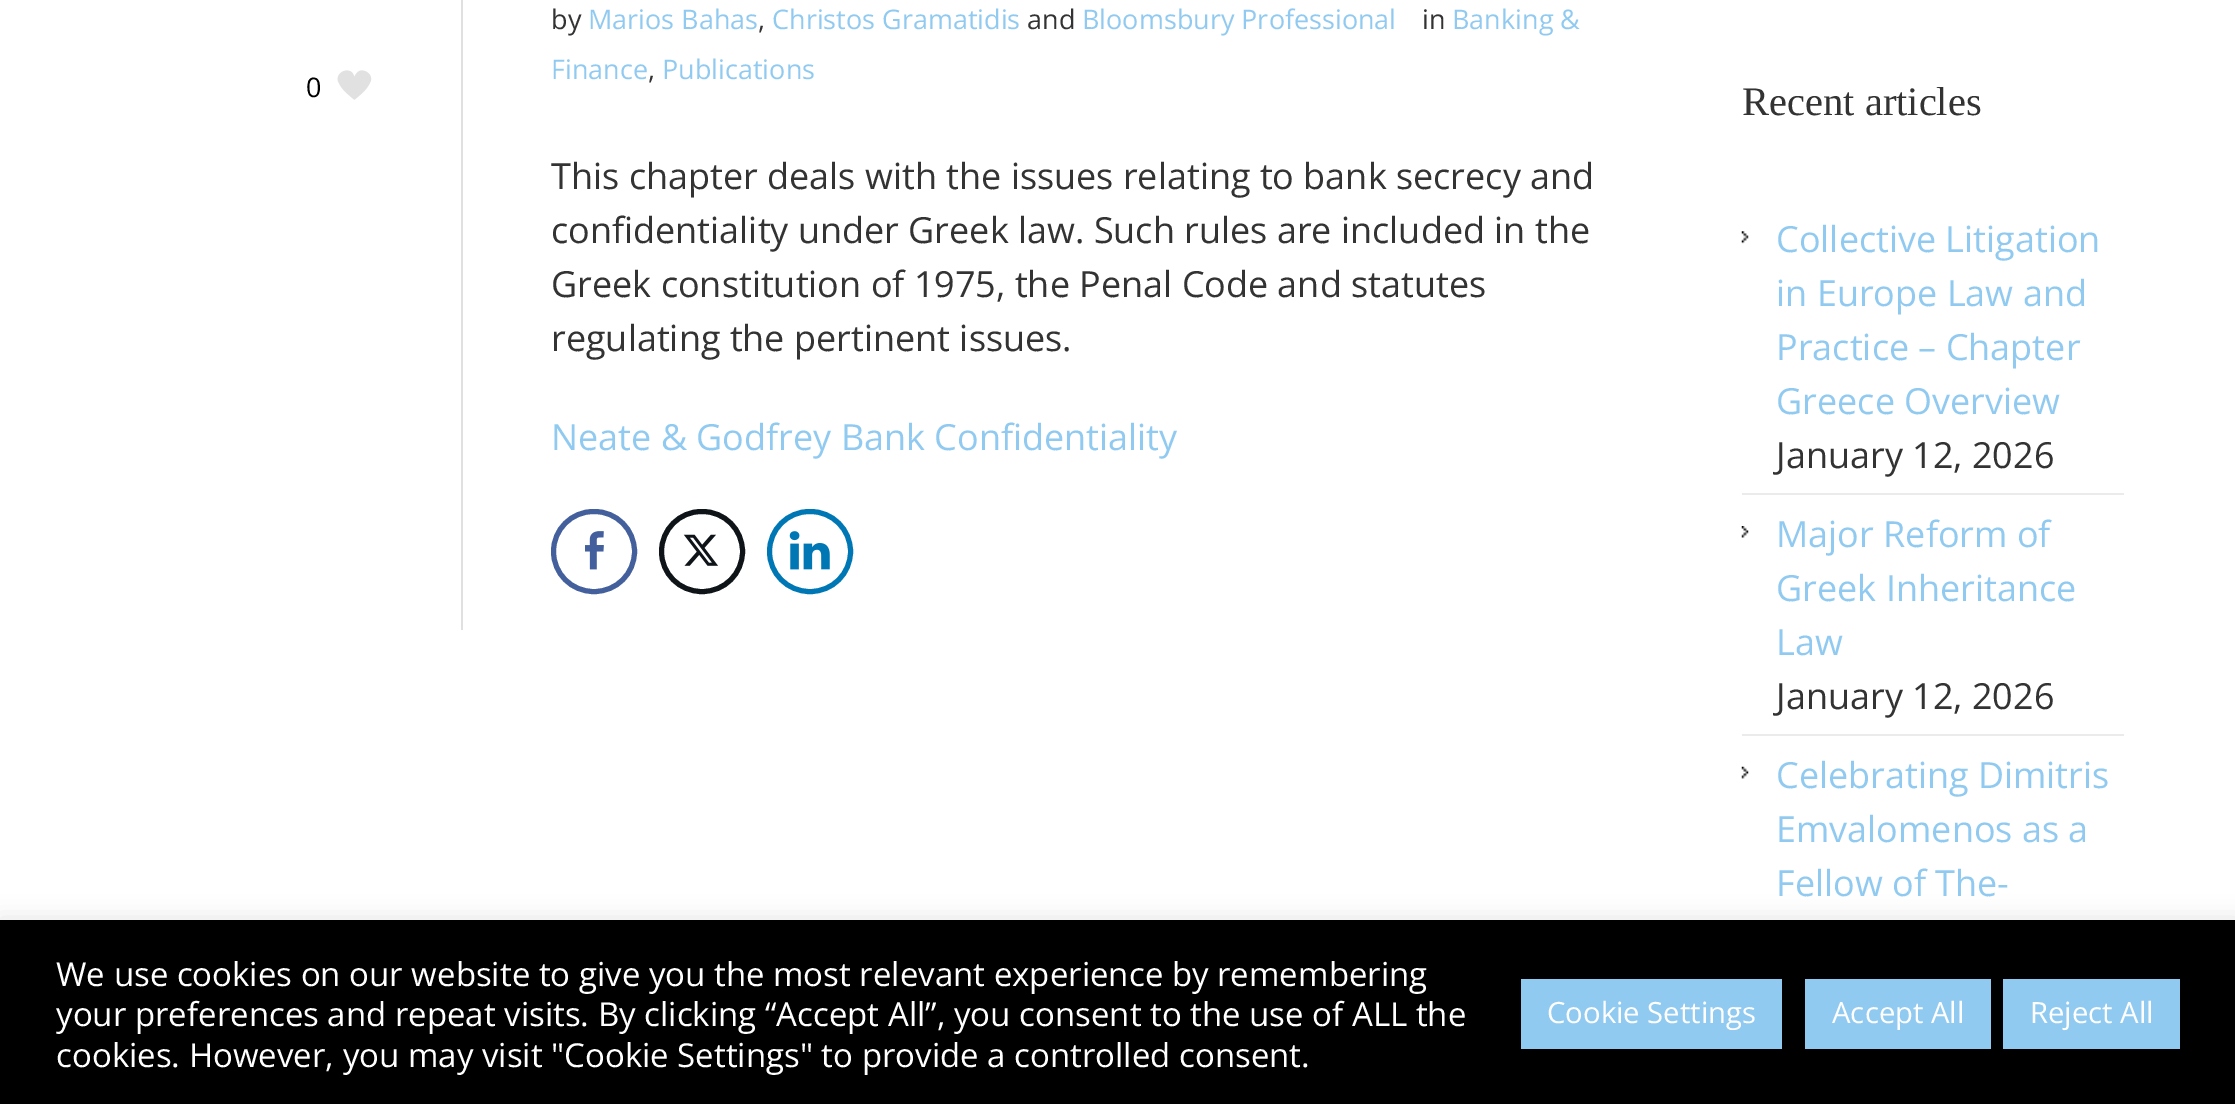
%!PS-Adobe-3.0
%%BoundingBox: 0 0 2235 1104
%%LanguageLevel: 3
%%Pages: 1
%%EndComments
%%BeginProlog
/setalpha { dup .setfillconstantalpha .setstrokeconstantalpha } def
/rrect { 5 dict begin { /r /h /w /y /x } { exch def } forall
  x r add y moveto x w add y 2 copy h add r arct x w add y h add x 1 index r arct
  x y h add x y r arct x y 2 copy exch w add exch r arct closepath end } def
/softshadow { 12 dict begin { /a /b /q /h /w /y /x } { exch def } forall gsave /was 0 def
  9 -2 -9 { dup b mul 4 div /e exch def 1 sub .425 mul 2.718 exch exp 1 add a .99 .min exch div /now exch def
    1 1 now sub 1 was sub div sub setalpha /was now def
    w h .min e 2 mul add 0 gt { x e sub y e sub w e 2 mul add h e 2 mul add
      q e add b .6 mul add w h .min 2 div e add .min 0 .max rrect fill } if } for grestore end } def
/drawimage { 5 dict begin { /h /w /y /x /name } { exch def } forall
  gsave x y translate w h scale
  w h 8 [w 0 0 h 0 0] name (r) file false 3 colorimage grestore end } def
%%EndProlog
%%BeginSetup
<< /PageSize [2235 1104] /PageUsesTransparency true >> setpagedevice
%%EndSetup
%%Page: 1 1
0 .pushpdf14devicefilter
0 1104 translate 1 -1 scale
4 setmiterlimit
1 setgray
0 0 2235 1104 rectfill
(images/1.raw) 337 70 35 30 drawimage
0.878 setgray
461 0 2 630 rectfill
0.263 0.376 0.612 setrgbcolor
5 setlinewidth
553.5 511.5 81 80 40 rrect stroke
(images/2.raw) 585 531 19 39 drawimage
0.059 0.078 0.098 setrgbcolor
661.5 511.5 81 80 40 rrect stroke
(images/3.raw) 683 534 35 32 drawimage
0 0.467 0.71 setrgbcolor
769.5 511.5 81 80 40 rrect stroke
(images/4.raw) 789 531 41 39 drawimage
(images/5.raw) 1741 231 8 13 drawimage
(images/6.raw) 1741 526 8 12 drawimage
0.922 setgray
1742 493 382 2 rectfill
(images/7.raw) 1741 766 8 13 drawimage
1742 734 382 2 rectfill
0.675 0.671 0.671 setrgbcolor
0 918 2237 185 0 11 0.3 softshadow
0 setgray
0 920 2235 184 rectfill
0.569 0.792 0.941 setrgbcolor
1521 979 261 70 rectfill
1805 979 186 70 rectfill
2003 979 177 70 rectfill
/OpenSans-Regular [27 0 0 -27 0 0] selectfont
0 setgray
306 97 moveto (0) show
0.2 setgray
551 29 moveto (by) show
0.569 0.792 0.941 setrgbcolor
588 29 moveto (Marios Bahas) show
0.2 setgray
758 29 moveto (,) show
0.569 0.792 0.941 setrgbcolor
772 29 moveto (Christos Gramatidis) show
0.2 setgray
1027 29 moveto (and) show
0.569 0.792 0.941 setrgbcolor
1082 29 moveto (Bloomsbury Professional) show
0.2 setgray
1422 29 moveto (in) show
0.569 0.792 0.941 setrgbcolor
1452 29 moveto (Banking &) show
551 79 moveto (Finance) show
0.2 setgray
648 79 moveto (,) show
0.569 0.792 0.941 setrgbcolor
662 79 moveto (Publications) show
/OpenSans-Regular [36 0 0 -36 0 0] selectfont
0.2 setgray
551 189 moveto (This chapter deals with the issues relating to bank secrecy and) show
551 243 moveto (confidentiality under Greek law. Such rules are included in the) show
551 297 moveto (Greek constitution of 1975, the Penal Code and statutes) show
551 351 moveto (regulating the pertinent issues.) show
0.569 0.792 0.941 setrgbcolor
551 450 moveto (Neate & Godfrey Bank Confidentiality) show
/Tinos-Regular [40.5 0 0 -40.5 0 0] selectfont
0.2 setgray
1742 115 moveto (Recent articles) show
/OpenSans-Regular [36 0 0 -36 0 0] selectfont
0.569 0.792 0.941 setrgbcolor
1776 252 moveto (Collective Litigation) show
1776 306 moveto (in Europe Law and) show
1776 360 moveto (Practice – Chapter) show
1776 414 moveto (Greece Overview) show
0.2 setgray
1776 468 moveto (January 12, 2026) show
0.569 0.792 0.941 setrgbcolor
1776 547 moveto (Major Reform of) show
1776 601 moveto (Greek Inheritance) show
1776 655 moveto (Law) show
0.2 setgray
1776 709 moveto (January 12, 2026) show
0.569 0.792 0.941 setrgbcolor
1776 788 moveto (Celebrating Dimitris) show
1776 842 moveto (Emvalomenos as a) show
1776 896 moveto (Fellow of The-) show
/OpenSans-Regular [33 0 0 -33 0 0] selectfont
1 setgray
56 986 moveto (We use cookies on our website to give you the most relevant experience by remembering) show
56 1026 moveto (your preferences and repeat visits. By clicking “Accept All”, you consent to the use of ALL the) show
56 1067 moveto (cookies. However, you may visit "Cookie Settings" to provide a controlled consent.) show
/OpenSans-Regular [29.25 0 0 -29.25 0 0] selectfont
1547 1023 moveto (Cookie Settings) show
1832 1023 moveto (Accept All) show
2030 1023 moveto (Reject All) show
.poppdf14devicefilter showpage
%%EOF
